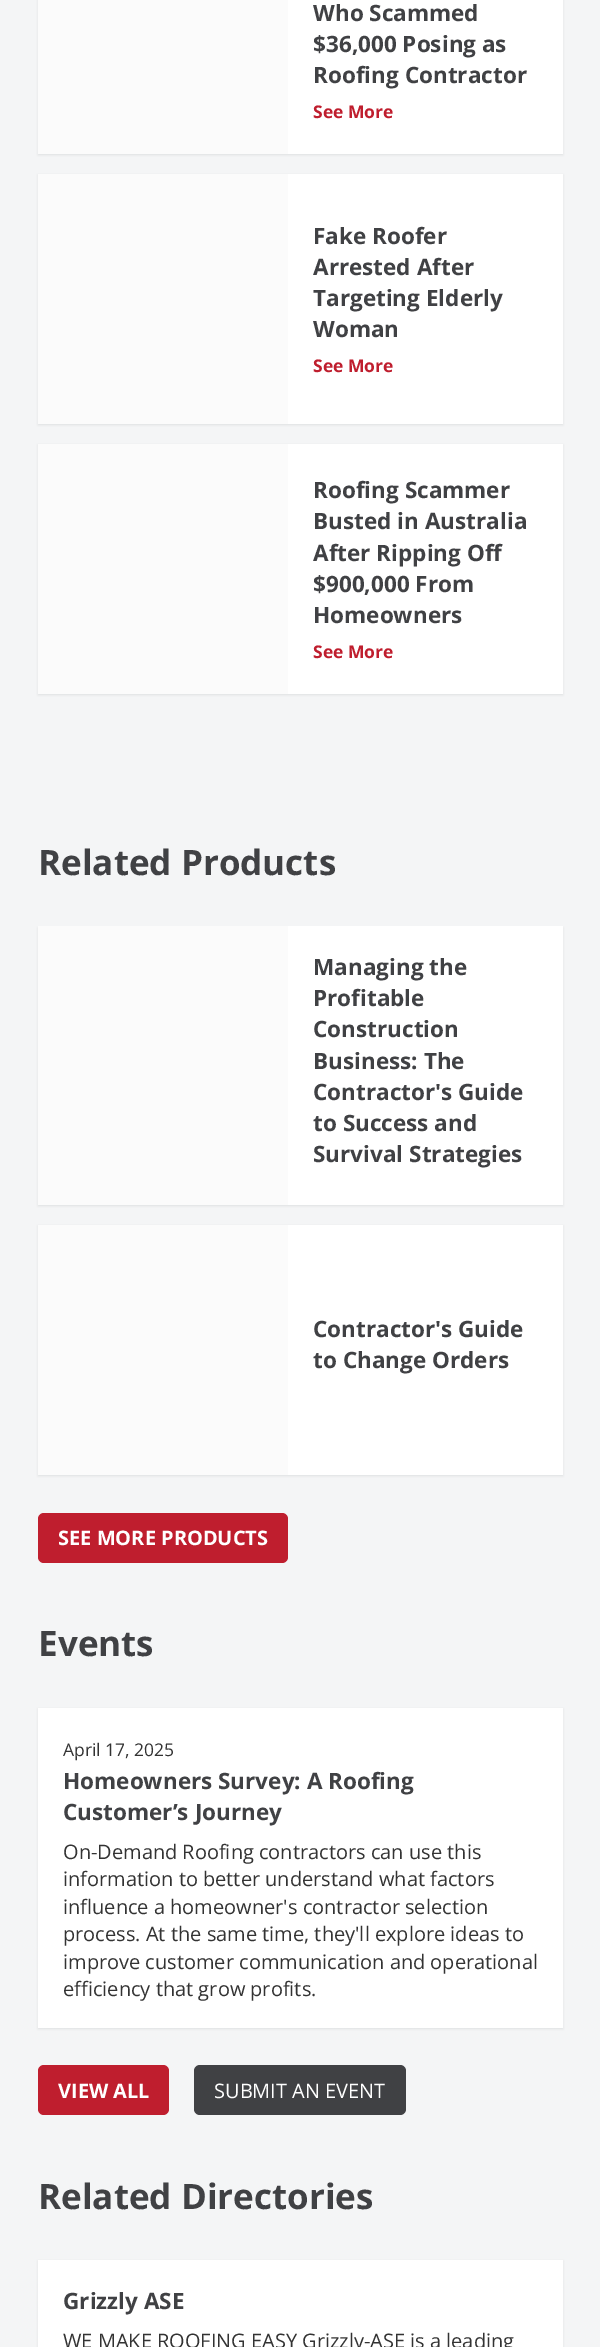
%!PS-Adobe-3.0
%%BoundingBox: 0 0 600 2347
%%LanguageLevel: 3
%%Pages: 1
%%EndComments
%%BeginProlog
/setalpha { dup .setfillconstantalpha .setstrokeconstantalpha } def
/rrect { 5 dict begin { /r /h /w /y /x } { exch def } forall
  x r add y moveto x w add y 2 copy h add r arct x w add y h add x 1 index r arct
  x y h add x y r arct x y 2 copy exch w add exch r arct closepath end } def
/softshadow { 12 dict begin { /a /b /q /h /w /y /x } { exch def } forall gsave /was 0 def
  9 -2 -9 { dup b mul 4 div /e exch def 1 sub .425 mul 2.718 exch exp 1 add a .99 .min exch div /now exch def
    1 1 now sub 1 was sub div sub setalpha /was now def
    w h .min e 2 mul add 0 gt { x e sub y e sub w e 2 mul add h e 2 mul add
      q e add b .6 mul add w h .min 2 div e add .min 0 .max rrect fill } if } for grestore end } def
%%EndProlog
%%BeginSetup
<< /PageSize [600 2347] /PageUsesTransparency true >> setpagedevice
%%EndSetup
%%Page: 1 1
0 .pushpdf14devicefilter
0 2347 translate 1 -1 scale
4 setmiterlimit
0.957 0.961 0.965 setrgbcolor
0 0 600 2347 rectfill
0.035 0.059 0.075 setrgbcolor
38 -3 525 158 0 1 0.08 softshadow
1 setgray
288 0 275 154 rectfill
0.984 setgray
38 0 250 154 rectfill
0.035 0.059 0.075 setrgbcolor
38 175 525 250 0 1 0.08 softshadow
1 setgray
288 174 275 250 rectfill
0.984 setgray
38 174 250 250 rectfill
0.035 0.059 0.075 setrgbcolor
38 445 525 250 0 1 0.08 softshadow
1 setgray
288 444 275 250 rectfill
0.984 setgray
38 444 250 250 rectfill
0.035 0.059 0.075 setrgbcolor
38 928 525 278 0 1 0.08 softshadow
1 setgray
288 926 275 279 rectfill
0.984 setgray
38 926 250 279 rectfill
0.035 0.059 0.075 setrgbcolor
38 1226 525 250 0 1 0.08 softshadow
1 setgray
288 1225 275 250 rectfill
0.984 setgray
38 1225 250 250 rectfill
0.749 0.118 0.18 setrgbcolor
38 1513 250 50 6 rrect fill
0.035 0.059 0.075 setrgbcolor
38 1709 525 320 0 1 0.08 softshadow
1 setgray
38 1708 525 320 rectfill
0.749 0.118 0.18 setrgbcolor
38 2065 131 50 6 rrect fill
0.251 0.255 0.267 setrgbcolor
194 2065 212 50 6 rrect fill
0.035 0.059 0.075 setrgbcolor
38 2261 525 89 0 1 0.08 softshadow
1 setgray
38 2260 525 87 rectfill
/OpenSans-Bold [22.5 0 0 -22.5 0 0] selectfont
0.251 0.255 0.267 setrgbcolor
313 21 moveto (Who Scammed) show
313 52 moveto ($36,000 Posing as) show
313 83 moveto (Roofing Contractor) show
/OpenSans-Bold [17.5 0 0 -17.5 0 0] selectfont
0.749 0.118 0.18 setrgbcolor
313 118 moveto (See More) show
/OpenSans-Bold [22.5 0 0 -22.5 0 0] selectfont
0.251 0.255 0.267 setrgbcolor
313 244 moveto (Fake Roofer) show
313 275 moveto (Arrested After) show
313 306 moveto (Targeting Elderly) show
313 337 moveto (Woman) show
/OpenSans-Bold [17.5 0 0 -17.5 0 0] selectfont
0.749 0.118 0.18 setrgbcolor
313 372 moveto (See More) show
/OpenSans-Bold [22.5 0 0 -22.5 0 0] selectfont
0.251 0.255 0.267 setrgbcolor
313 498 moveto (Roofing Scammer) show
313 529 moveto (Busted in Australia) show
313 561 moveto (After Ripping Off) show
313 592 moveto ($900,000 From) show
313 623 moveto (Homeowners) show
/OpenSans-Bold [17.5 0 0 -17.5 0 0] selectfont
0.749 0.118 0.18 setrgbcolor
313 658 moveto (See More) show
/OpenSans-Bold [35 0 0 -35 0 0] selectfont
0.251 0.255 0.267 setrgbcolor
38 875 moveto (Related Products) show
/OpenSans-Bold [22.5 0 0 -22.5 0 0] selectfont
313 975 moveto (Managing the) show
313 1006 moveto (Profitable) show
313 1037 moveto (Construction) show
313 1069 moveto (Business: The) show
313 1100 moveto (Contractor's Guide) show
313 1131 moveto (to Success and) show
313 1162 moveto (Survival Strategies) show
313 1337 moveto (Contractor's Guide) show
313 1368 moveto (to Change Orders) show
/OpenSans-Bold [20 0 0 -20 0 0] selectfont
1 setgray
58 1545 moveto (SEE MORE PRODUCTS) show
/OpenSans-Bold [35 0 0 -35 0 0] selectfont
0.251 0.255 0.267 setrgbcolor
38 1656 moveto (Events) show
/OpenSans-Regular [17.5 0 0 -17.5 0 0] selectfont
0.2 setgray
63 1756 moveto (April 17, 2025) show
/OpenSans-Bold [22.5 0 0 -22.5 0 0] selectfont
0.251 0.255 0.267 setrgbcolor
63 1789 moveto (Homeowners Survey: A Roofing) show
63 1820 moveto (Customer’s Journey) show
/OpenSans-Regular [20 0 0 -20 0 0] selectfont
0.2 setgray
63 1859 moveto (On-Demand Roofing contractors can use this) show
63 1886 moveto (information to better understand what factors) show
63 1914 moveto (influence a homeowner's contractor selection) show
63 1941 moveto (process. At the same time, they'll explore ideas to) show
63 1969 moveto (improve customer communication and operational) show
63 1996 moveto (efficiency that grow profits.) show
/OpenSans-Bold [20 0 0 -20 0 0] selectfont
1 setgray
58 2098 moveto (VIEW ALL) show
/OpenSans-Regular [20 0 0 -20 0 0] selectfont
214 2098 moveto (SUBMIT AN EVENT) show
/OpenSans-Bold [35 0 0 -35 0 0] selectfont
0.251 0.255 0.267 setrgbcolor
38 2209 moveto (Related Directories) show
/OpenSans-Bold [22.5 0 0 -22.5 0 0] selectfont
63 2309 moveto (Grizzly ASE) show
/OpenSans-Regular [20 0 0 -20 0 0] selectfont
0.2 setgray
63 2348 moveto (WE MAKE ROOFING EASY Grizzly-ASE is a leading) show
.poppdf14devicefilter showpage
%%EOF
